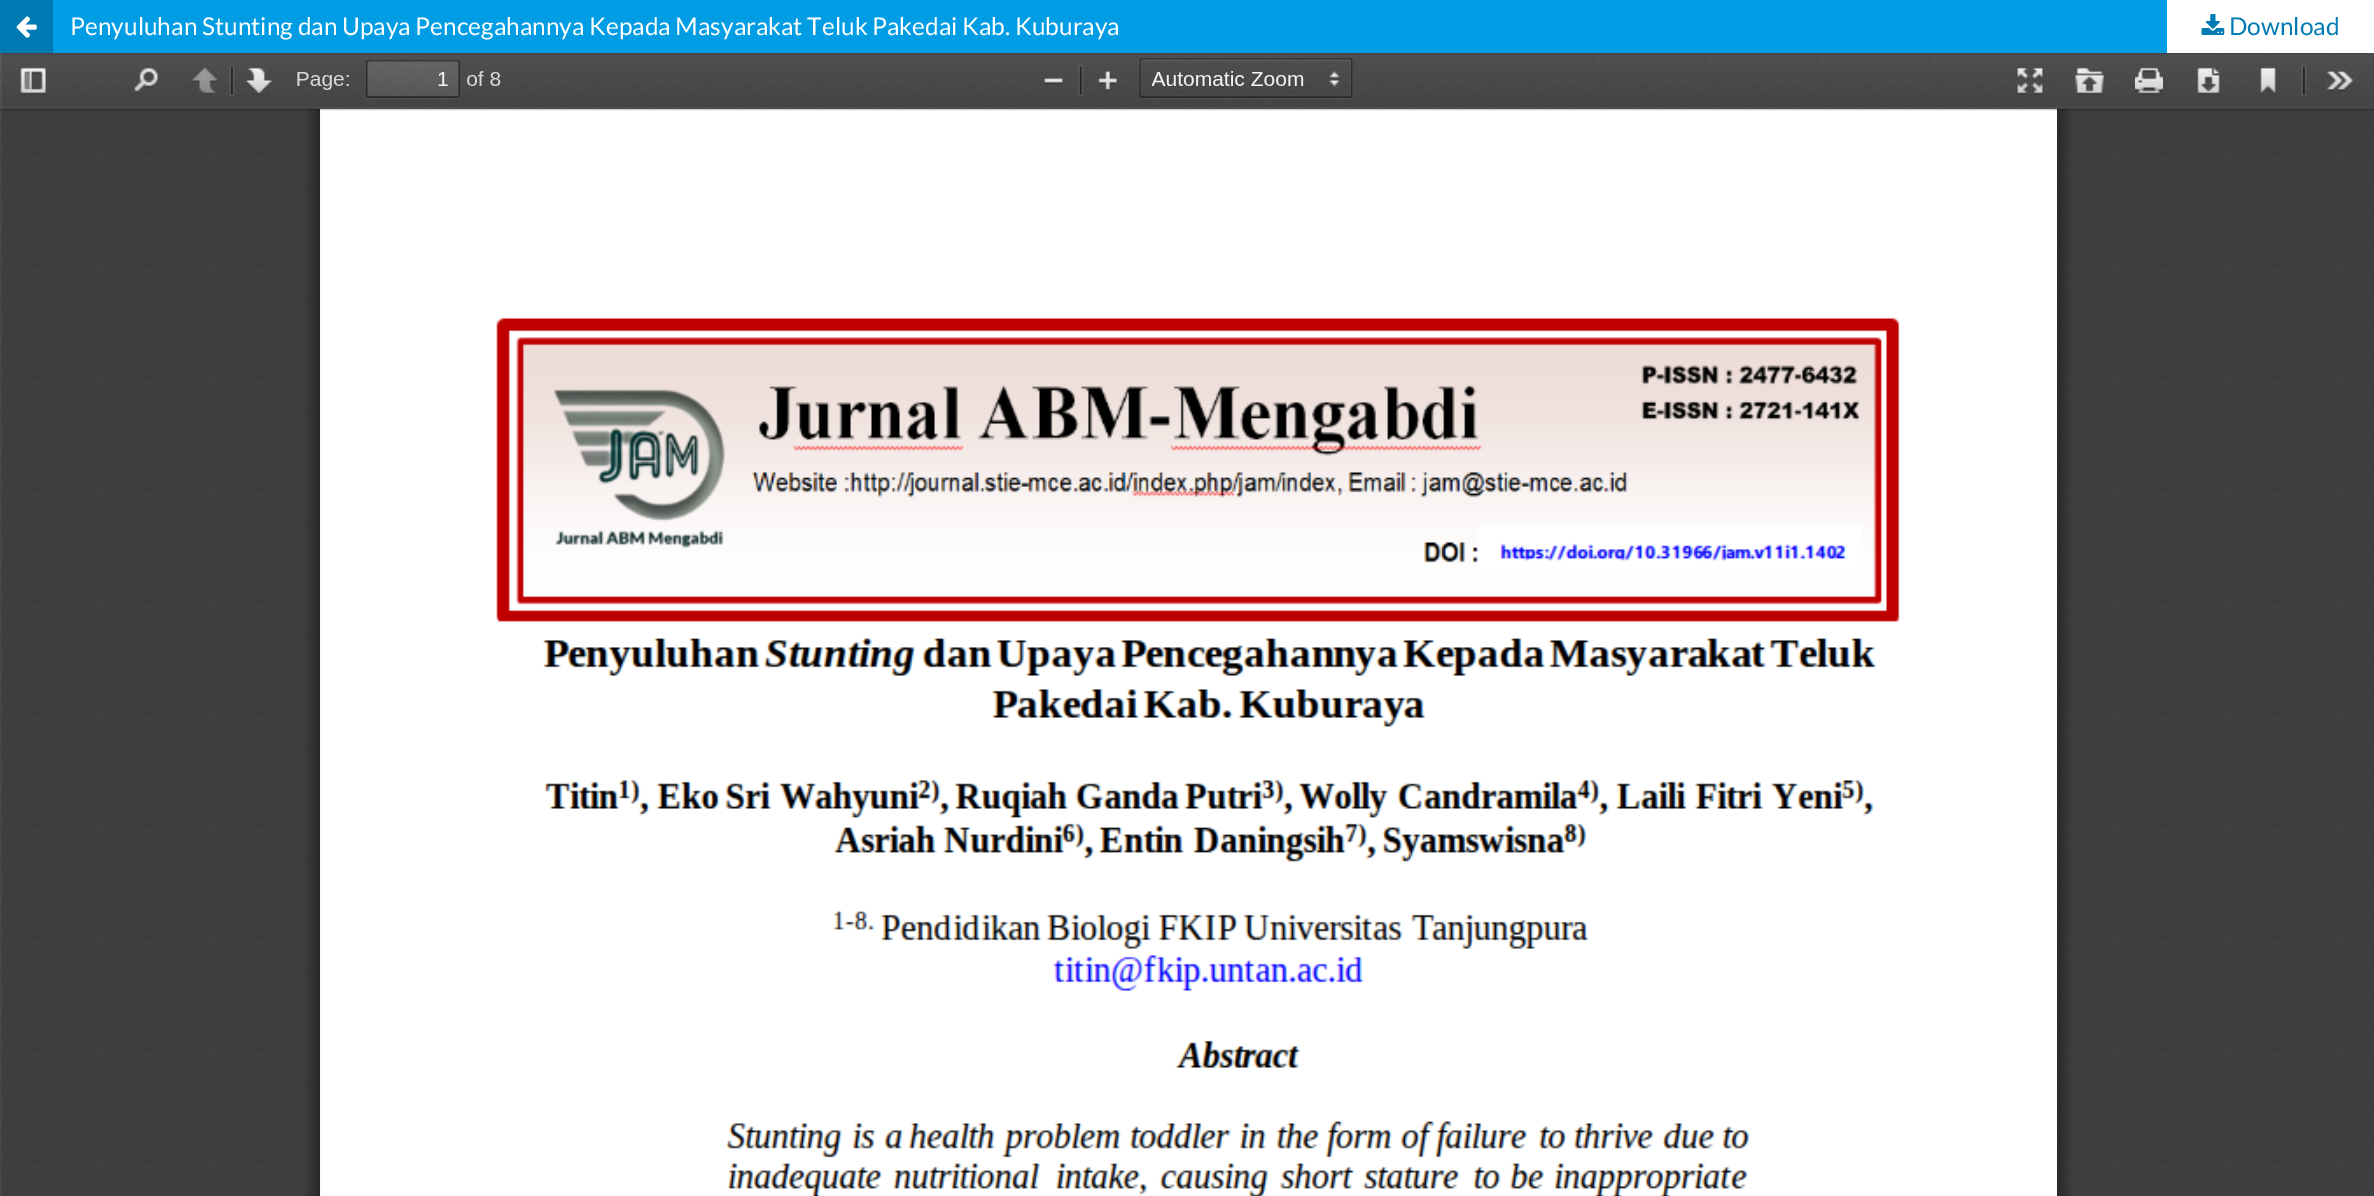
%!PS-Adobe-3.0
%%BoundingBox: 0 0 2374 1196
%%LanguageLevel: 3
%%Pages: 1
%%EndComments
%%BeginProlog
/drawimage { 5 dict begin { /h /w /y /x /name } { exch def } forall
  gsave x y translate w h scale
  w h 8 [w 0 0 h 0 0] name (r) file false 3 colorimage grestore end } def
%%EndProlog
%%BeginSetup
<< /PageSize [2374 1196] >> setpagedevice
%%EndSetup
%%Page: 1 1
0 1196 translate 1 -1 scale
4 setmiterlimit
1 setgray
0 0 2374 1196 rectfill
0 0.616 0.898 setrgbcolor
53 0 2114 53 rectfill
0 0.478 0.698 setrgbcolor
0 0 53 53 rectfill
(images/1.raw) 16 16 21 22 drawimage
(images/2.raw) 2201 14 24 21 drawimage
(images/3.raw) 0 53 2374 1143 drawimage
/Lato-Regular [24.5 0 0 -24.5 0 0] selectfont
1 setgray
70 35 moveto (Penyuluhan Stunting dan Upaya Pencegahannya Kepada Masyarakat Teluk Pakedai Kab. Kuburaya) show
0 0.478 0.698 setrgbcolor
2229 35 moveto (Download) show
showpage
%%EOF
